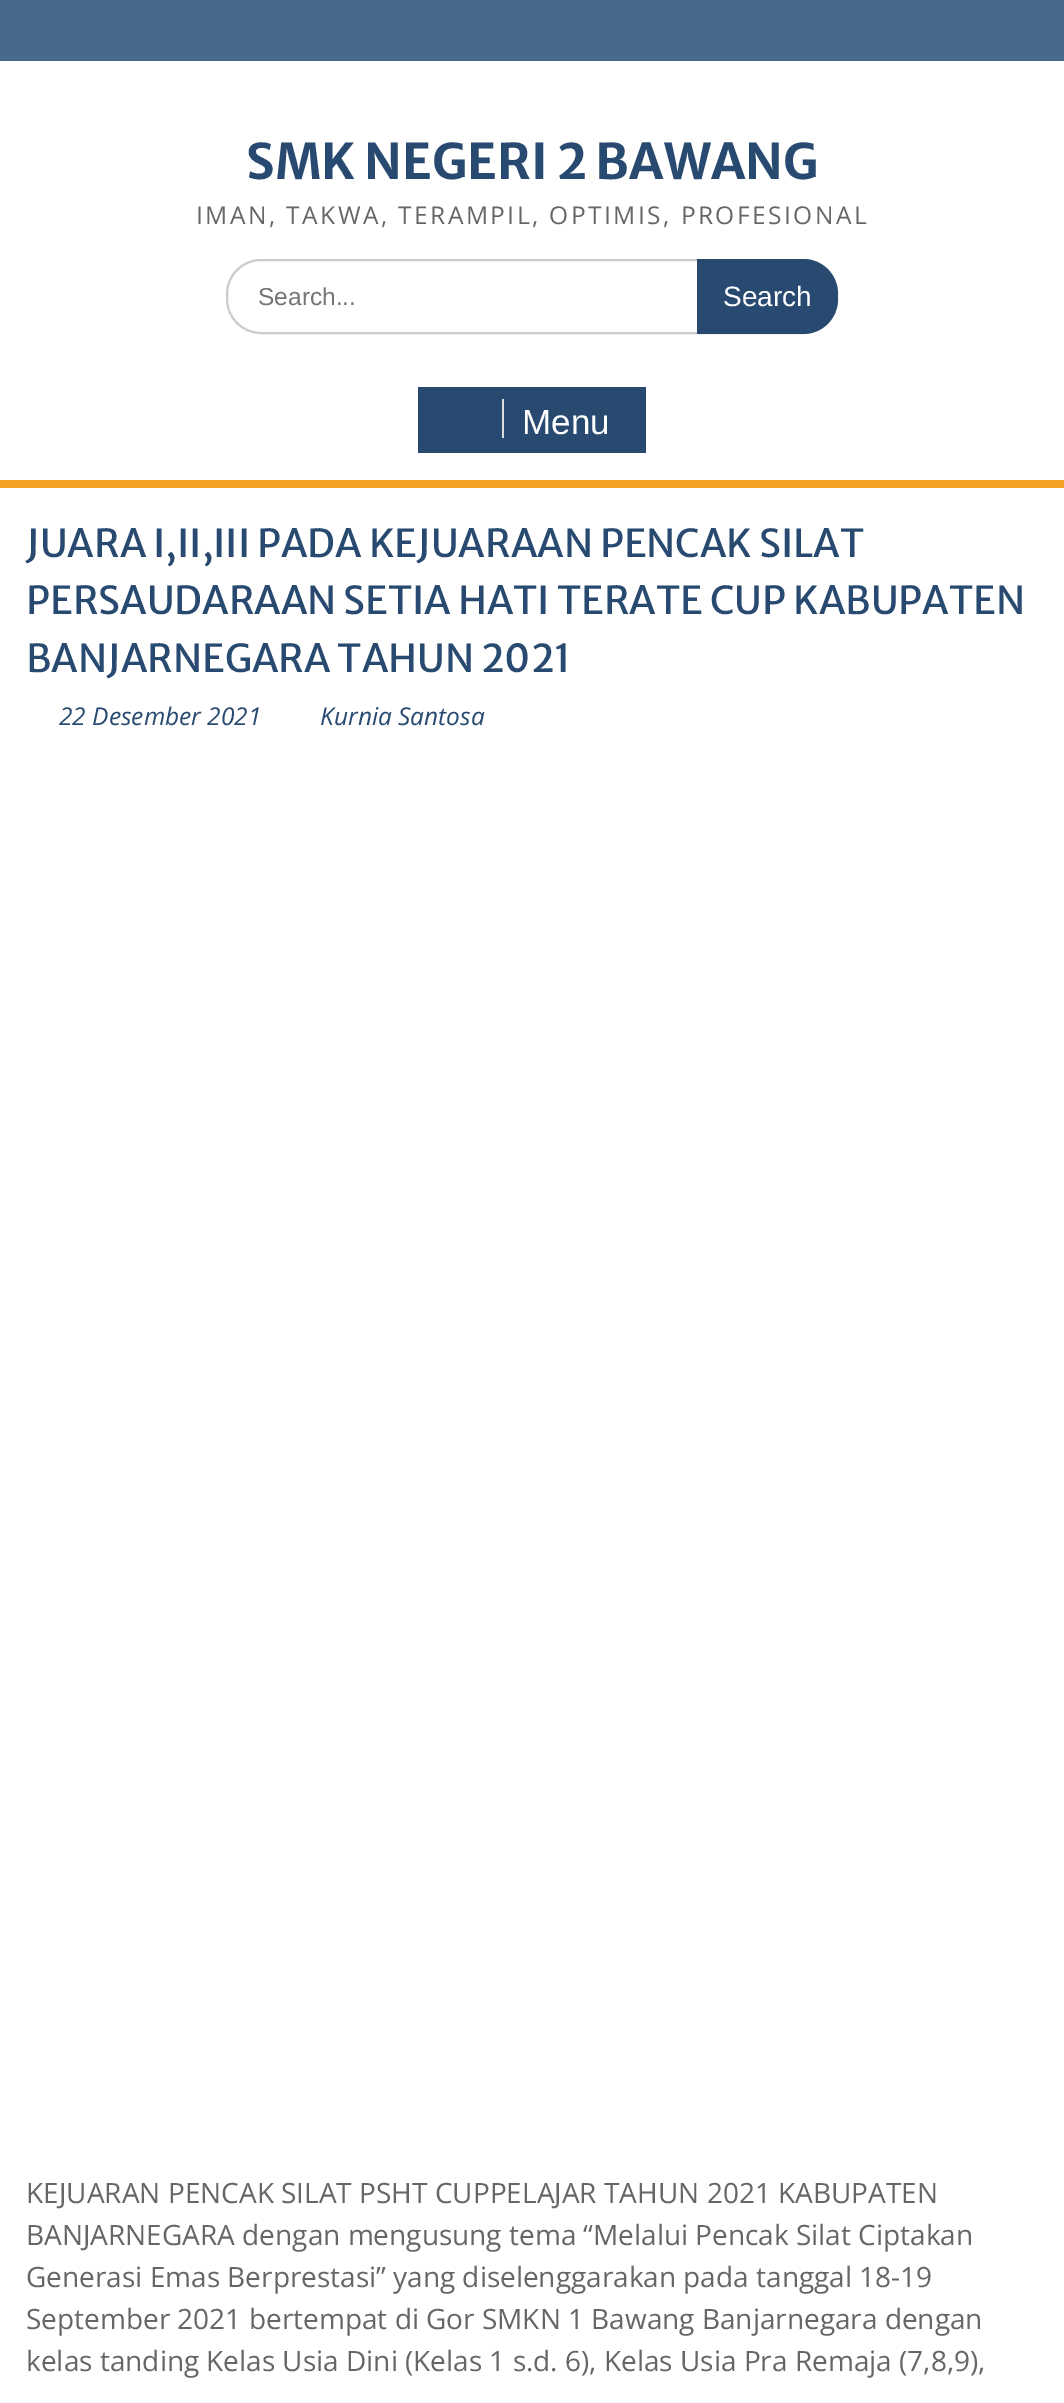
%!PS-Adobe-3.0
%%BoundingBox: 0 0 1064 2403
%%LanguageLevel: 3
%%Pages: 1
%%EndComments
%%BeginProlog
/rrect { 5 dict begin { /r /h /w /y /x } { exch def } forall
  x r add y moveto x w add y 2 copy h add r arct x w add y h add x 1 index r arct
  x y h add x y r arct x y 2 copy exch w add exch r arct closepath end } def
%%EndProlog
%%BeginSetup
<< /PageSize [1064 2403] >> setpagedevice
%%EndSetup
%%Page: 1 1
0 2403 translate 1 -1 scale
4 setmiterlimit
1 setgray
0 0 1064 2403 rectfill
0.286 0.408 0.557 setrgbcolor
0 0 1064 61 rectfill
0.8 setgray
2 setlinewidth
227 260 610 73 34 rrect stroke
0.161 0.29 0.439 setrgbcolor
newpath 697 259 moveto 803 259 lineto 822.5 259 838 274.5 838 294 curveto 838 299 lineto 838 318.5 822.5 334 803 334 curveto 697 334 lineto closepath fill
0.957 0.627 0.141 setrgbcolor
0 480 1064 8 rectfill
0.161 0.29 0.439 setrgbcolor
418 387 228 66 rectfill
0.867 setgray
502 399 2 39 rectfill
/MerriweatherSans-Bold [49 0 0 -49 0 0] selectfont
0.161 0.29 0.439 setrgbcolor
246 179 moveto (SMK NEGERI 2 BAWANG) show
/OpenSans-Regular [24.5 0 0 -24.5 0 0] selectfont
0.4 setgray
196 224 moveto 2.45 0 (IMAN, TAKWA, TERAMPIL, OPTIMIS, PROFESIONAL) ashow
/LiberationSans-Regular [24.5 0 0 -24.5 0 0] selectfont
0.459 setgray
258 305 moveto (Search...) show
/LiberationSans-Regular [28 0 0 -28 0 0] selectfont
1 setgray
723 306 moveto (Search) show
/LiberationSans-Regular [35 0 0 -35 0 0] selectfont
522 434 moveto (Menu) show
/MerriweatherSans-Regular [38.5 0 0 -38.5 0 0] selectfont
0.161 0.29 0.439 setrgbcolor
26 557 moveto (JUARA I,II,III PADA KEJUARAAN PENCAK SILAT) show
26 614 moveto (PERSAUDARAAN SETIA HATI TERATE CUP KABUPATEN) show
26 672 moveto (BANJARNEGARA TAHUN 2021) show
/OpenSans-Italic [24.5 0 0 -24.5 0 0] selectfont
59 725 moveto (22 Desember 2021) show
320 725 moveto (Kurnia Santosa) show
/OpenSans-Regular [28 0 0 -28 0 0] selectfont
0.4 setgray
26 2203 moveto (KEJUARAN PENCAK SILAT PSHT CUPPELAJAR TAHUN 2021 KABUPATEN) show
26 2245 moveto (BANJARNEGARA dengan mengusung tema “Melalui Pencak Silat Ciptakan) show
26 2287 moveto (Generasi Emas Berprestasi” yang diselenggarakan pada tanggal 18-19) show
26 2329 moveto (September 2021 bertempat di Gor SMKN 1 Bawang Banjarnegara dengan) show
26 2371 moveto (kelas tanding Kelas Usia Dini \(Kelas 1 s.d. 6\), Kelas Usia Pra Remaja \(7,8,9\),) show
showpage
%%EOF
